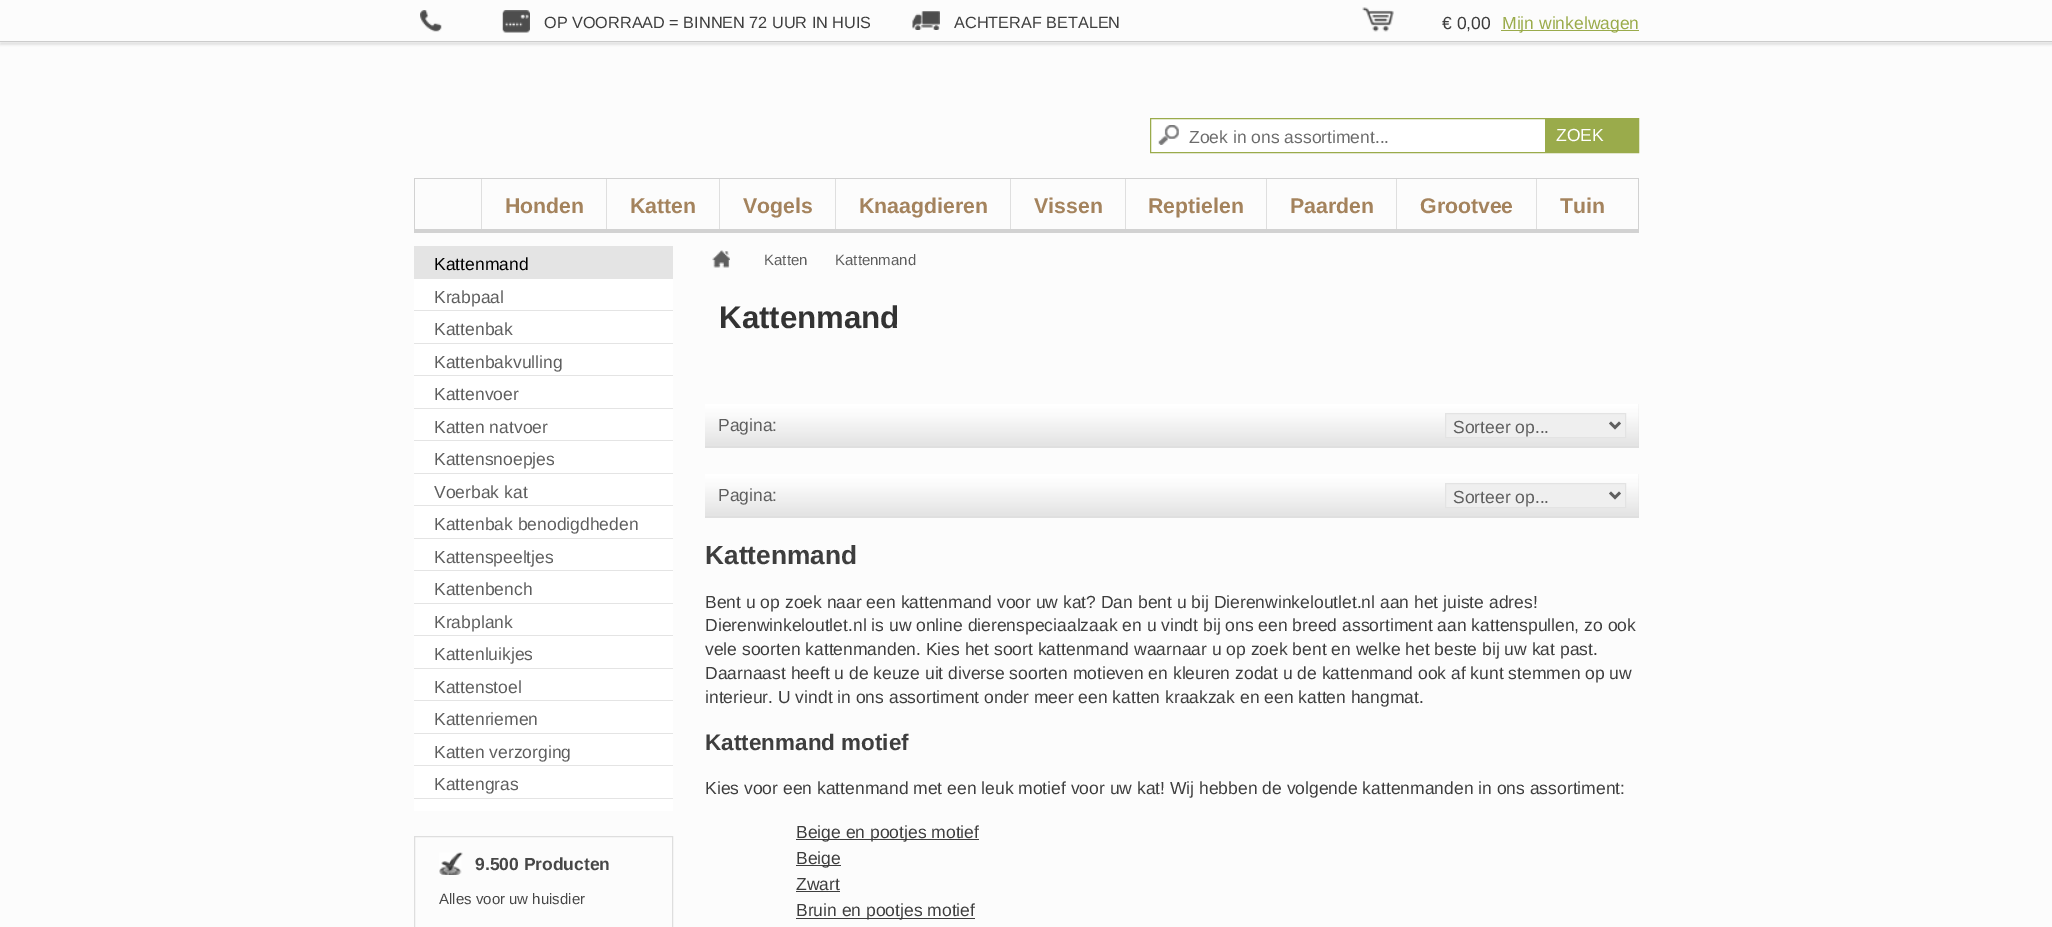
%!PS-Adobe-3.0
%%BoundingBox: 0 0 2052 927
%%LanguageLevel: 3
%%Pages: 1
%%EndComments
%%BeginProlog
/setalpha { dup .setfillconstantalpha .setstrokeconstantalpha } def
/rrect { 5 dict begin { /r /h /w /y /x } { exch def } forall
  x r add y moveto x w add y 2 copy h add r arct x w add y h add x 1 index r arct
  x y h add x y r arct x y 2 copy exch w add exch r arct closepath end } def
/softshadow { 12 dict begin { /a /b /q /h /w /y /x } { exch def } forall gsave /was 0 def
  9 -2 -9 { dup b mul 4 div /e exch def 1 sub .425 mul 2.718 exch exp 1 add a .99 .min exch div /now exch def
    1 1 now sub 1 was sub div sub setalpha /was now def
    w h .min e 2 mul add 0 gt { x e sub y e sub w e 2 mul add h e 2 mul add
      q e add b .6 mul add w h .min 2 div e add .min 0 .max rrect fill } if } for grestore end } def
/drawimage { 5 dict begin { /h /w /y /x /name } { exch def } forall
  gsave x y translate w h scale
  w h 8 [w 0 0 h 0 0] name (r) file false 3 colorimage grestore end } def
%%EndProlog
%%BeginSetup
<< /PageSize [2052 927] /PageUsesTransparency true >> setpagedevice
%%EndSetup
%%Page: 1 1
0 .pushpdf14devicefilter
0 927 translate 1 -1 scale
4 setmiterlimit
0.988 setgray
0 0 2052 927 rectfill
gsave
newpath 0 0 moveto 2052 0 lineto 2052 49 lineto 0 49 lineto closepath 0 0 moveto 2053 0 lineto 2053 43 lineto 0 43 lineto closepath eoclip newpath
0 setgray
0 3 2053 42 0 1 0.1 softshadow
grestore
(images/1.raw) 0 42 2052 1 drawimage
0.8 setgray
0 41 2052 1 rectfill
(images/2.raw) 420 10 22 22 drawimage
(images/3.raw) 502 10 28 23 drawimage
(images/4.raw) 912 11 28 19 drawimage
(images/5.raw) 1362 7 32 25 drawimage
0.604 0.671 0.294 setrgbcolor
1501 30 138 1 rectfill
1 setgray
1151 119 394 33 rectfill
0.604 0.671 0.294 setrgbcolor
1150.5 118.5 488 34 rectstroke
(images/6.raw) 1158 125 21 20 drawimage
1545 119 93 33 rectfill
0.824 setgray
414 178 1225 1 rectfill
1638 178 1 55 rectfill
414 229 1225 4 rectfill
414 178 1 55 rectfill
0.875 setgray
481 179 1 50 rectfill
606 179 1 50 rectfill
719 179 1 50 rectfill
835 179 1 50 rectfill
1010 179 1 50 rectfill
1125 179 1 50 rectfill
1266 179 1 50 rectfill
1396 179 1 50 rectfill
1536 179 1 50 rectfill
1 setgray
414 279 259 532 rectfill
0.894 setgray
414 246 259 33 rectfill
414 310 259 1 rectfill
414 343 259 1 rectfill
414 375 259 1 rectfill
414 408 259 1 rectfill
414 440 259 1 rectfill
414 473 259 1 rectfill
414 505 259 1 rectfill
414 538 259 1 rectfill
414 570 259 1 rectfill
414 603 259 1 rectfill
414 635 259 1 rectfill
414 668 259 1 rectfill
414 700 259 1 rectfill
414 733 259 1 rectfill
414 765 259 1 rectfill
414 798 259 1 rectfill
0.871 setgray
414.5 836.5 258 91 rectstroke
(images/7.raw) 439 852 24 23 drawimage
(images/8.raw) 712 250 18 18 drawimage
0.875 setgray
705 404 934 44 rectfill
(images/9.raw) 705 404 934 42 drawimage
0.937 setgray
newpath 1445.5 413.5 moveto 1625.5 413.5 lineto 1625.5 437.5 lineto 1445.5 437.5 lineto closepath gsave fill grestore
0.89 setgray
stroke
0.369 setgray
2.5 setlinewidth
newpath 1610 422.5 moveto 1615 427.5 lineto 1620 422.5 lineto stroke
0.875 setgray
705 474 934 44 rectfill
(images/9.raw) 705 474 934 42 drawimage
0.937 setgray
newpath 1445.5 483.5 moveto 1625.5 483.5 lineto 1625.5 507.5 lineto 1445.5 507.5 lineto closepath gsave fill grestore
0.89 setgray
1 setlinewidth
stroke
0.369 setgray
2.5 setlinewidth
newpath 1610 492.5 moveto 1615 497.5 lineto 1620 492.5 lineto stroke
0.243 setgray
796 839 183 1 rectfill
796 865 45 1 rectfill
796 891 44 1 rectfill
796 918 179 1 rectfill
/LiberationSans-Regular [16.25 0 0 -16.25 0 0] selectfont
544 28 moveto (OP VOORRAAD = BINNEN 72 UUR IN HUIS) show
954 28 moveto (ACHTERAF BETALEN) show
/LiberationSans-Regular [17.5 0 0 -17.5 0 0] selectfont
1442 29 moveto (€ 0,00) show
0.604 0.671 0.294 setrgbcolor
1502 29 moveto (Mijn winkelwagen) show
0.424 setgray
1189 143 moveto (Zoek in ons assortiment...) show
1 setgray
1556 141 moveto (ZOEK) show
/LiberationSans-Bold [21.25 0 0 -21.25 0 0] selectfont
0.643 0.514 0.365 setrgbcolor
505 213 moveto (Honden) show
630 213 moveto (Katten) show
743 213 moveto (Vogels) show
859 213 moveto (Knaagdieren) show
1034 213 moveto (Vissen) show
1148 213 moveto (Reptielen) show
1290 213 moveto (Paarden) show
1420 213 moveto (Grootvee) show
1560 213 moveto (Tuin) show
/LiberationSans-Regular [17.5 0 0 -17.5 0 0] selectfont
0 setgray
434 270 moveto (Kattenmand) show
0.369 setgray
434 303 moveto (Krabpaal) show
434 335 moveto (Kattenbak) show
434 368 moveto (Kattenbakvulling) show
434 400 moveto (Kattenvoer) show
434 433 moveto (Katten natvoer) show
434 465 moveto (Kattensnoepjes) show
434 498 moveto (Voerbak kat) show
434 530 moveto (Kattenbak benodigdheden) show
434 563 moveto (Kattenspeeltjes) show
434 595 moveto (Kattenbench) show
434 628 moveto (Krabplank) show
434 660 moveto (Kattenluikjes) show
434 693 moveto (Kattenstoel) show
434 725 moveto (Kattenriemen) show
434 758 moveto (Katten verzorging) show
434 790 moveto (Kattengras) show
/LiberationSans-Bold [17.5 0 0 -17.5 0 0] selectfont
0.278 setgray
475 870 moveto (9.500 Producten) show
/LiberationSans-Regular [15 0 0 -15 0 0] selectfont
439 904 moveto (Alles voor uw huisdier) show
0.369 setgray
764 265 moveto (Katten) show
835 265 moveto (Kattenmand) show
/LiberationSans-Bold [31.25 0 0 -31.25 0 0] selectfont
0.2 setgray
719 328 moveto (Kattenmand) show
/LiberationSans-Regular [17.5 0 0 -17.5 0 0] selectfont
0.369 setgray
718 431 moveto (Pagina:) show
1453 433 moveto (Sorteer op...) show
718 501 moveto (Pagina:) show
1453 503 moveto (Sorteer op...) show
/LiberationSans-Bold [26.25 0 0 -26.25 0 0] selectfont
0.243 setgray
705 564 moveto (Kattenmand) show
/LiberationSans-Regular [17.5 0 0 -17.5 0 0] selectfont
705 608 moveto (Bent u op zoek naar een kattenmand voor uw kat? Dan bent u bij Dierenwinkeloutlet.nl aan het juiste adres!) show
705 631 moveto (Dierenwinkeloutlet.nl is uw online dierenspeciaalzaak en u vindt bij ons een breed assortiment aan kattenspullen, zo ook) show
705 655 moveto (vele soorten kattenmanden. Kies het soort kattenmand waarnaar u op zoek bent en welke het beste bij uw kat past.) show
705 679 moveto (Daarnaast heeft u de keuze uit diverse soorten motieven en kleuren zodat u de kattenmand ook af kunt stemmen op uw) show
705 703 moveto (interieur. U vindt in ons assortiment onder meer een katten kraakzak en een katten hangmat.) show
/LiberationSans-Bold [22.5 0 0 -22.5 0 0] selectfont
705 750 moveto (Kattenmand motief) show
/LiberationSans-Regular [17.5 0 0 -17.5 0 0] selectfont
705 794 moveto (Kies voor een kattenmand met een leuk motief voor uw kat! Wij hebben de volgende kattenmanden in ons assortiment:) show
796 838 moveto (Beige en pootjes motief) show
796 864 moveto (Beige) show
796 890 moveto (Zwart) show
796 916 moveto (Bruin en pootjes motief) show
.poppdf14devicefilter showpage
%%EOF
